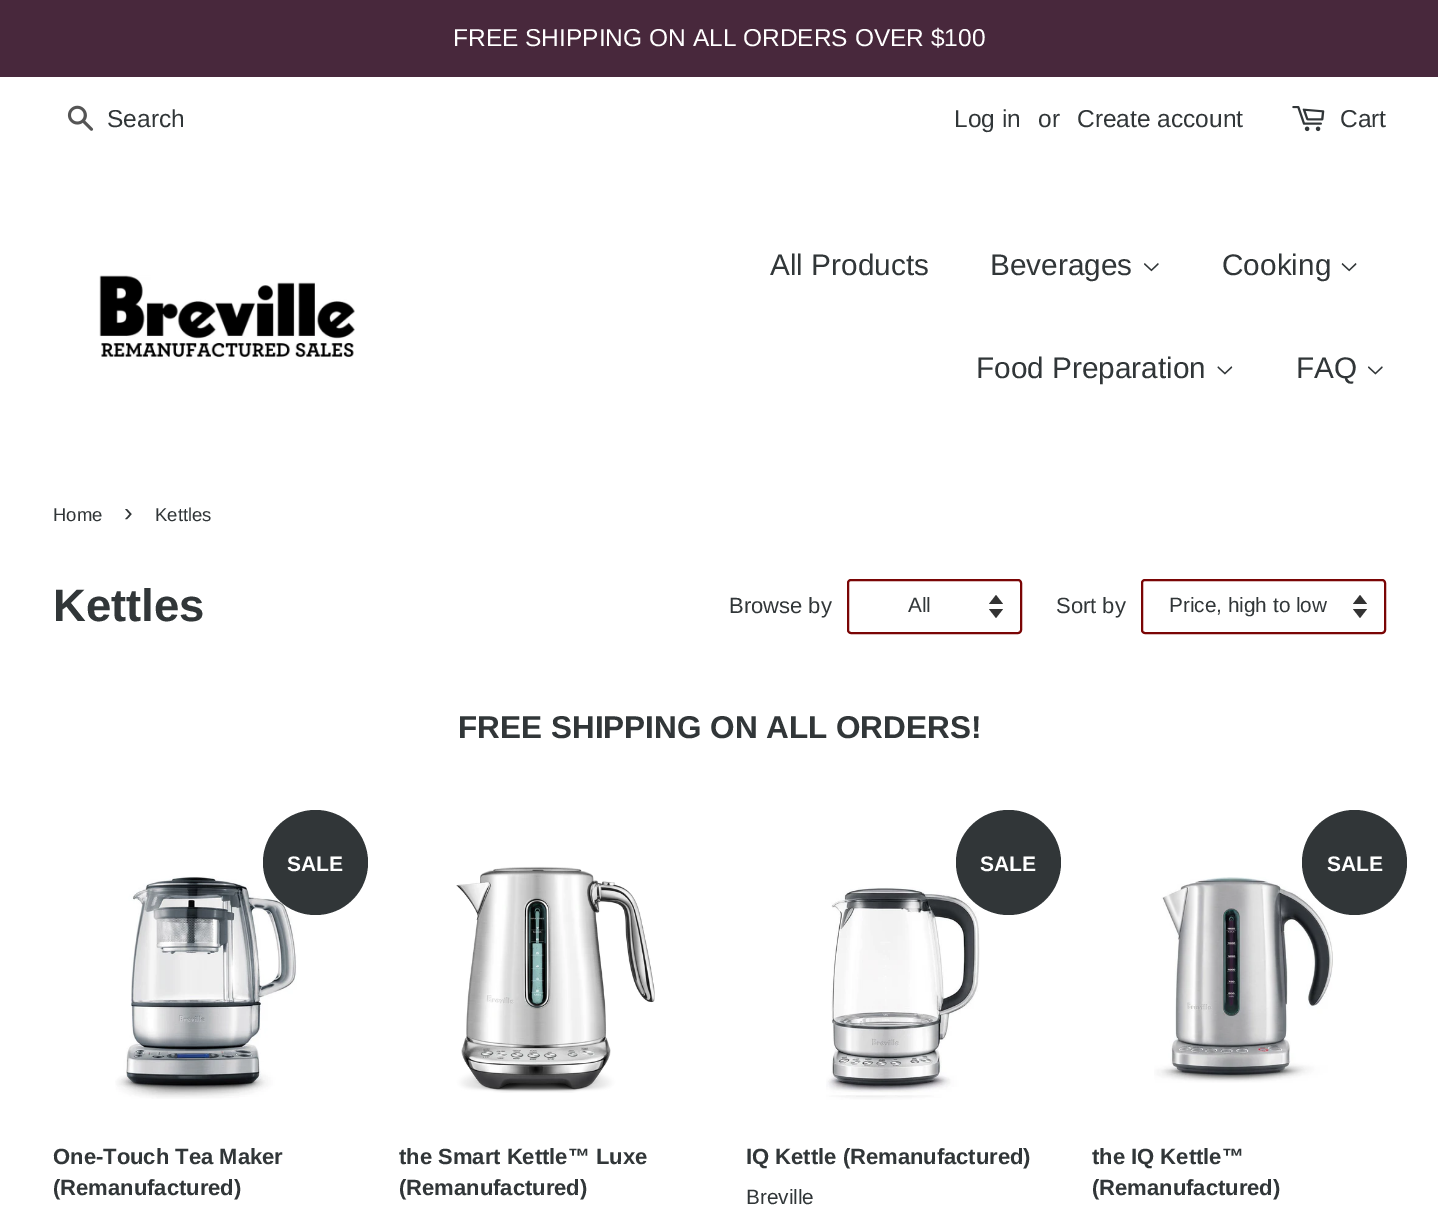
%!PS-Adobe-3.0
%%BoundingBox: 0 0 1438 1229
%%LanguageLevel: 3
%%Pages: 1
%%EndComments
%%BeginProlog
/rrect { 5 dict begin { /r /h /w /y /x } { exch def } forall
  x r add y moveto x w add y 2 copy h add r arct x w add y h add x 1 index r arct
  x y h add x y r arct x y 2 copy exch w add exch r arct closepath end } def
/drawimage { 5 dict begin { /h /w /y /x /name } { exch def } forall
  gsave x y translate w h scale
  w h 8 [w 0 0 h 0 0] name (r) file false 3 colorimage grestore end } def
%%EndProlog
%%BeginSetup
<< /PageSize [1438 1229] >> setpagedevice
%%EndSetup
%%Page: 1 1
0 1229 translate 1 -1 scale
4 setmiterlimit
1 setgray
0 0 1438 1229 rectfill
0.282 0.157 0.235 setrgbcolor
0 0 1438 77 rectfill
(images/1.raw) 67 105 27 26 drawimage
(images/2.raw) 1292 106 33 26 drawimage
(images/3.raw) 99 275 256 84 drawimage
(images/4.raw) 1144 263 15 9 drawimage
(images/5.raw) 1341 263 16 9 drawimage
(images/6.raw) 1217 366 16 9 drawimage
(images/7.raw) 1368 366 15 9 drawimage
0.2 setgray
newpath 989 609 moveto 996 618 lineto 1003 609 lineto closepath 996 595 moveto 989 604 lineto 1003 604 lineto closepath fill
0.478 0.02 0.02 setrgbcolor
2 setlinewidth
848 580 173 53 3 rrect stroke
0.2 setgray
newpath 1353 609 moveto 1360 618 lineto 1367 609 lineto closepath 1360 595 moveto 1353 604 lineto 1367 604 lineto closepath fill
0.478 0.02 0.02 setrgbcolor
1142 580 243 53 3 rrect stroke
(images/8.raw) 115 876 182 223 drawimage
0.192 0.212 0.22 setrgbcolor
newpath 315.5 862.5 52.5 0 360 arc closepath fill
(images/9.raw) 456 866 199 227 drawimage
(images/10.raw) 826 887 154 213 drawimage
newpath 1008.5 862.5 52.5 0 360 arc closepath fill
(images/11.raw) 1154 877 179 206 drawimage
newpath 1354.5 862.5 52.5 0 360 arc closepath fill
/LiberationSans-Regular [24.5 0 0 -24.5 0 0] selectfont
1 setgray
453 46 moveto (FREE SHIPPING ON ALL ORDERS OVER $100) show
0.192 0.212 0.22 setrgbcolor
107 127 moveto (Search) show
954 127 moveto (Log in) show
1038 127 moveto (or) show
1077 127 moveto (Create account) show
1340 127 moveto (Cart) show
/LiberationSans-Regular [29.75 0 0 -29.75 0 0] selectfont
770 275 moveto (All Products) show
990 275 moveto (Beverages) show
1222 275 moveto (Cooking) show
976 378 moveto (Food Preparation) show
1296 378 moveto (FAQ) show
/LiberationSans-Regular [18.5 0 0 -18.5 0 0] selectfont
53 521 moveto (Home) show
/LiberationSans-Regular [26 0 0 -26 0 0] selectfont
124 521 moveto (›) show
/LiberationSans-Regular [18.5 0 0 -18.5 0 0] selectfont
155 521 moveto (Kettles) show
/LiberationSans-Bold [45.5 0 0 -45.5 0 0] selectfont
53 621 moveto (Kettles) show
/LiberationSans-Regular [22 0 0 -22 0 0] selectfont
729 613 moveto (Browse by) show
/LiberationSans-Regular [20.75 0 0 -20.75 0 0] selectfont
908 612 moveto (All) show
/LiberationSans-Regular [22 0 0 -22 0 0] selectfont
1056 613 moveto (Sort by) show
/LiberationSans-Regular [20.75 0 0 -20.75 0 0] selectfont
1169 612 moveto (Price, high to low) show
/LiberationSans-Bold [31.5 0 0 -31.5 0 0] selectfont
458 738 moveto (FREE SHIPPING ON ALL ORDERS!) show
/LiberationSans-Bold [21 0 0 -21 0 0] selectfont
1 setgray
287 871 moveto (SALE) show
/LiberationSans-Bold [22 0 0 -22 0 0] selectfont
0.192 0.212 0.22 setrgbcolor
53 1164 moveto (One-Touch Tea Maker) show
53 1195 moveto (\(Remanufactured\)) show
399 1164 moveto (the Smart Kettle™ Luxe) show
399 1195 moveto (\(Remanufactured\)) show
/LiberationSans-Bold [21 0 0 -21 0 0] selectfont
1 setgray
980 871 moveto (SALE) show
/LiberationSans-Bold [22 0 0 -22 0 0] selectfont
0.192 0.212 0.22 setrgbcolor
746 1164 moveto (IQ Kettle \(Remanufactured\)) show
/LiberationSans-Regular [20.75 0 0 -20.75 0 0] selectfont
746 1204 moveto (Breville) show
/LiberationSans-Bold [21 0 0 -21 0 0] selectfont
1 setgray
1327 871 moveto (SALE) show
/LiberationSans-Bold [22 0 0 -22 0 0] selectfont
0.192 0.212 0.22 setrgbcolor
1092 1164 moveto (the IQ Kettle™) show
1092 1195 moveto (\(Remanufactured\)) show
showpage
%%EOF
